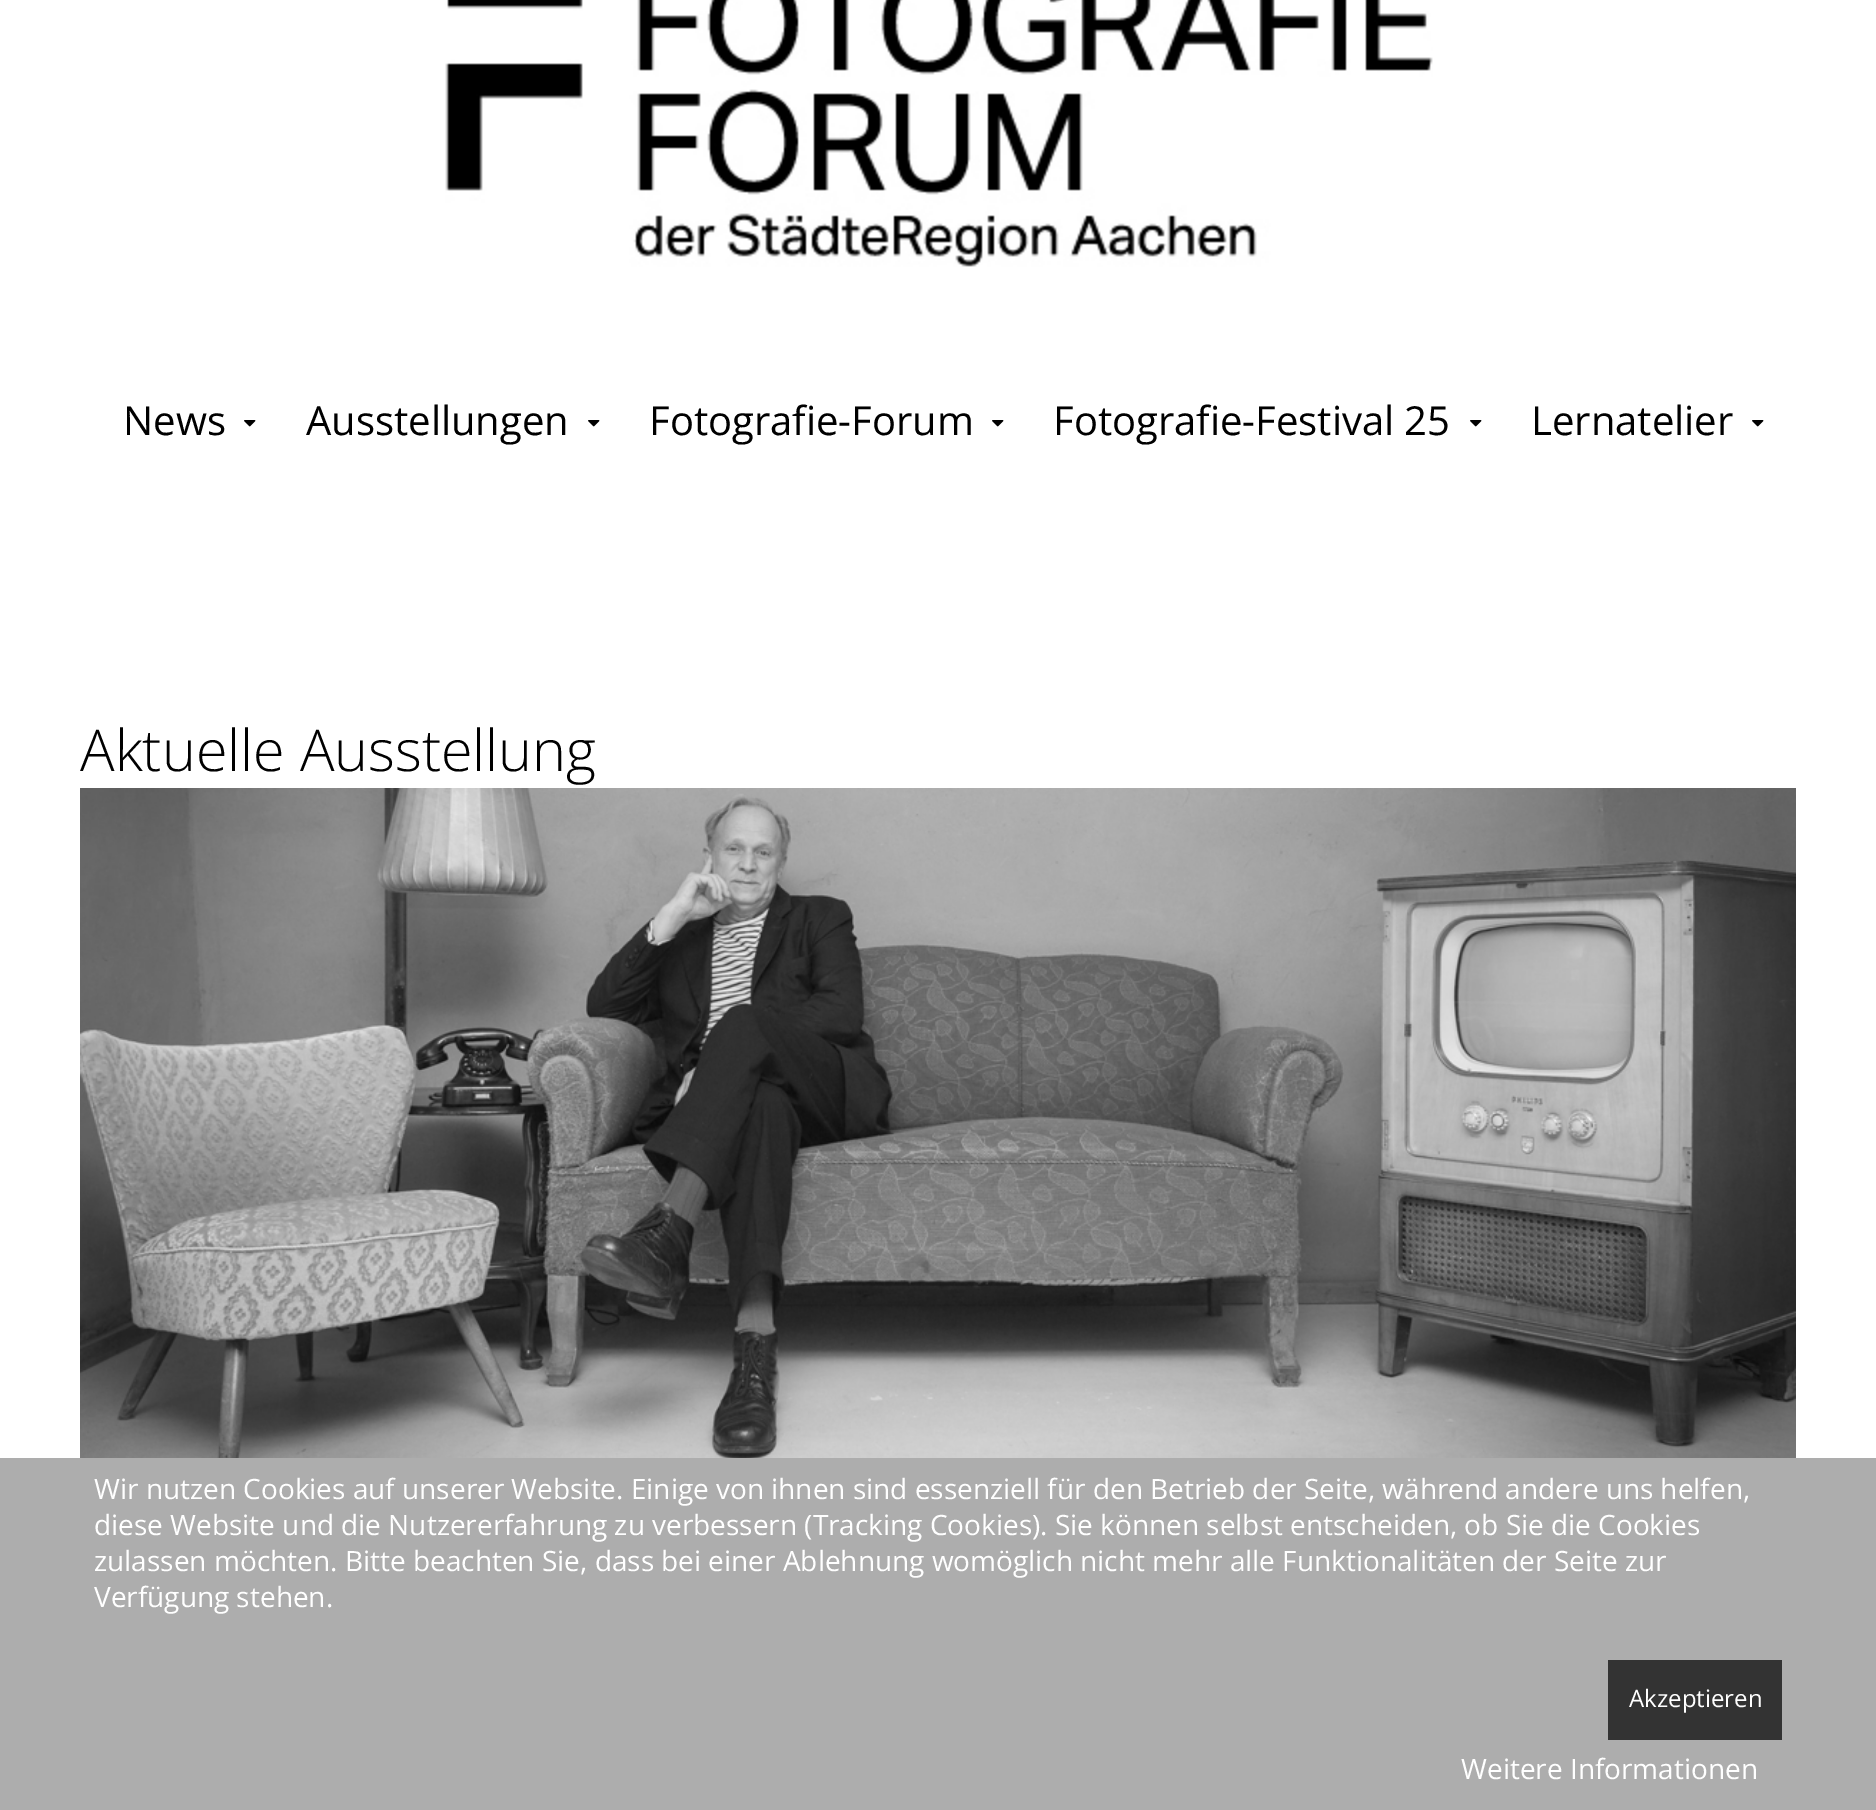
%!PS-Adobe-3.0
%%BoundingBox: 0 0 1876 1810
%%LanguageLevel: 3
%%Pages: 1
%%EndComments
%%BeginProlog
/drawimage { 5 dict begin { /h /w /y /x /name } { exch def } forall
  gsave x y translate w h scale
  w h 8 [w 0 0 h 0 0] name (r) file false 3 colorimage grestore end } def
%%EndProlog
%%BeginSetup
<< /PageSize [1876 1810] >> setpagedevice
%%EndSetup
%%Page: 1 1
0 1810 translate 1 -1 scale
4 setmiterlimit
1 setgray
0 0 1876 1810 rectfill
(images/1.raw) 445 0 988 267 drawimage
(images/2.raw) 244 420 12 7 drawimage
(images/2.raw) 588 420 12 7 drawimage
(images/2.raw) 992 420 12 7 drawimage
(images/2.raw) 1470 420 12 7 drawimage
(images/2.raw) 1752 420 12 7 drawimage
(images/3.raw) 80 788 1716 670 drawimage
0.678 setgray
0 1458 1876 352 rectfill
0.2 setgray
1608 1660 174 80 rectfill
/OpenSans-Regular [40 0 0 -40 0 0] selectfont
0 setgray
123 435 moveto (News) show
306 435 moveto (Ausstellungen) show
649 435 moveto (Fotografie-Forum) show
1053 435 moveto (Fotografie-Festival 25) show
1531 435 moveto (Lernatelier) show
/OpenSans-Light [57.5 0 0 -57.5 0 0] selectfont
80 771 moveto (Aktuelle Ausstellung) show
/OpenSans-Regular [28 0 0 -28 0 0] selectfont
1 setgray
94 1499 moveto (Wir nutzen Cookies auf unserer Website. Einige von ihnen sind essenziell für den Betrieb der Seite, während andere uns helfen,) show
94 1535 moveto (diese Website und die Nutzererfahrung zu verbessern \(Tracking Cookies\). Sie können selbst entscheiden, ob Sie die Cookies) show
94 1571 moveto (zulassen möchten. Bitte beachten Sie, dass bei einer Ablehnung womöglich nicht mehr alle Funktionalitäten der Seite zur) show
94 1607 moveto (Verfügung stehen.) show
/OpenSans-Regular [24 0 0 -24 0 0] selectfont
1629 1707 moveto (Akzeptieren) show
/OpenSans-Regular [28 0 0 -28 0 0] selectfont
1461 1779 moveto (Weitere Informationen) show
showpage
%%EOF
